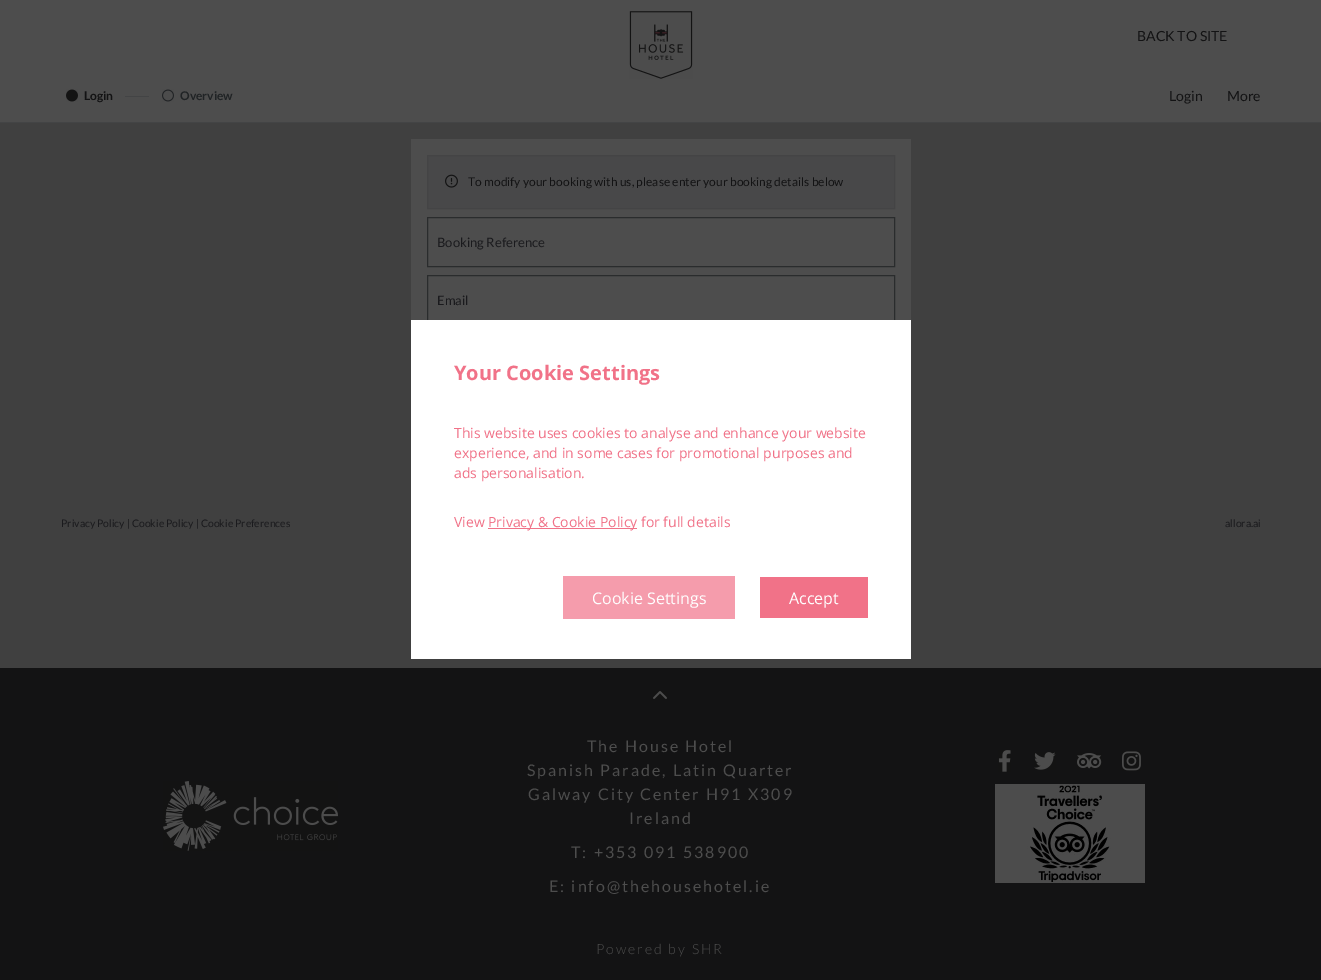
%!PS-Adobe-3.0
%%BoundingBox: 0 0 1321 980
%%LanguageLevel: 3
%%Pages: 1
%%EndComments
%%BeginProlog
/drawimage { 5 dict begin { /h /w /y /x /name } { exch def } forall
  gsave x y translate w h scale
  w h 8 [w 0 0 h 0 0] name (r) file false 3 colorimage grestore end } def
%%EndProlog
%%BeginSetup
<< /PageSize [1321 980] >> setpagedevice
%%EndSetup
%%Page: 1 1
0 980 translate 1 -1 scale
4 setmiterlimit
0.251 setgray
0 0 1321 980 rectfill
0.302 setgray
0 0 1321 122 rectfill
(images/1.raw) 629 11 64 68 drawimage
0.263 0.267 0.271 setrgbcolor
0 122 1321 1 rectfill
(images/2.raw) 66 89 12 13 drawimage
125 96 24 1 rectfill
(images/3.raw) 162 89 12 13 drawimage
0.302 setgray
411 139 500 181 rectfill
0.282 0.282 0.286 setrgbcolor
newpath 427.5 155.5 moveto 894.5 155.5 lineto 894.5 208.5 lineto 427.5 208.5 lineto closepath gsave fill grestore
0.267 0.267 0.271 setrgbcolor
stroke
(images/4.raw) 445 174 13 14 drawimage
0.165 0.173 0.176 setrgbcolor
427.5 217.5 467 49 rectstroke
427.5 275.5 467 49 rectstroke
0.075 0.075 0.078 setrgbcolor
0 668 1321 312 rectfill
(images/5.raw) 653 691 14 8 drawimage
(images/6.raw) 163 781 175 70 drawimage
(images/7.raw) 998 750 13 22 drawimage
(images/8.raw) 1034 752 22 18 drawimage
(images/9.raw) 1077 753 25 16 drawimage
(images/10.raw) 1122 751 19 20 drawimage
(images/11.raw) 995 784 150 99 drawimage
1 setgray
411 320 500 339 rectfill
0.945 0.447 0.533 setrgbcolor
488 528 149 1 rectfill
0.961 0.612 0.675 setrgbcolor
563 576 172 43 rectfill
0.945 0.447 0.533 setrgbcolor
760 577 108 41 rectfill
/Lato-Regular [14 0 0 -14 0 0] selectfont
0.075 0.075 0.078 setrgbcolor
1137 41 moveto (BACK TO SITE) show
/Lato-Bold [12 0 0 -12 0 0] selectfont
84 100 moveto (Login) show
0.125 0.137 0.145 setrgbcolor
180 100 moveto (Overview) show
/Lato-Regular [14 0 0 -14 0 0] selectfont
0.075 0.075 0.078 setrgbcolor
1169 101 moveto (Login) show
1227 101 moveto (More) show
/Lato-Regular [12 0 0 -12 0 0] selectfont
468 186 moveto (To modify your booking with us, please enter your booking details below) show
/Lato-Regular [13 0 0 -13 0 0] selectfont
0.102 0.102 0.114 setrgbcolor
437 247 moveto (Booking Reference) show
437 305 moveto (Email) show
/Lato-Regular [10.4 0 0 -10.4 0 0] selectfont
61 527 moveto (Privacy Policy | Cookie Policy | Cookie Preferences) show
1225 527 moveto (allora.ai) show
/Lato-Regular [16 0 0 -16 0 0] selectfont
0.302 setgray
587 752 moveto 2 0 (The House Hotel) ashow
527 776 moveto 2 0 (Spanish Parade, Latin Quarter) ashow
528 800 moveto 2 0 (Galway City Center H91 X309) ashow
629 824 moveto 2 0 (Ireland) ashow
571 858 moveto 2 0 (T: +353 091 538900) ashow
549 892 moveto 2 0 (E: info@thehousehotel.ie) ashow
/Lato-Light [14 0 0 -14 0 0] selectfont
596 954 moveto 2 0 (Powered by SHR) ashow
/OpenSans-Bold [20 0 0 -20 0 0] selectfont
0.945 0.447 0.533 setrgbcolor
454 380 moveto (Your Cookie Settings) show
/OpenSans-Regular [14 0 0 -14 0 0] selectfont
454 438 moveto (This website uses cookies to analyse and enhance your website) show
454 458 moveto (experience, and in some cases for promotional purposes and) show
454 478 moveto (ads personalisation.) show
454 527 moveto (View) show
488 527 moveto (Privacy & Cookie Policy for full details) show
/OpenSans-Regular [16 0 0 -16 0 0] selectfont
1 setgray
592 604 moveto (Cookie Settings) show
789 604 moveto (Accept) show
showpage
%%EOF
